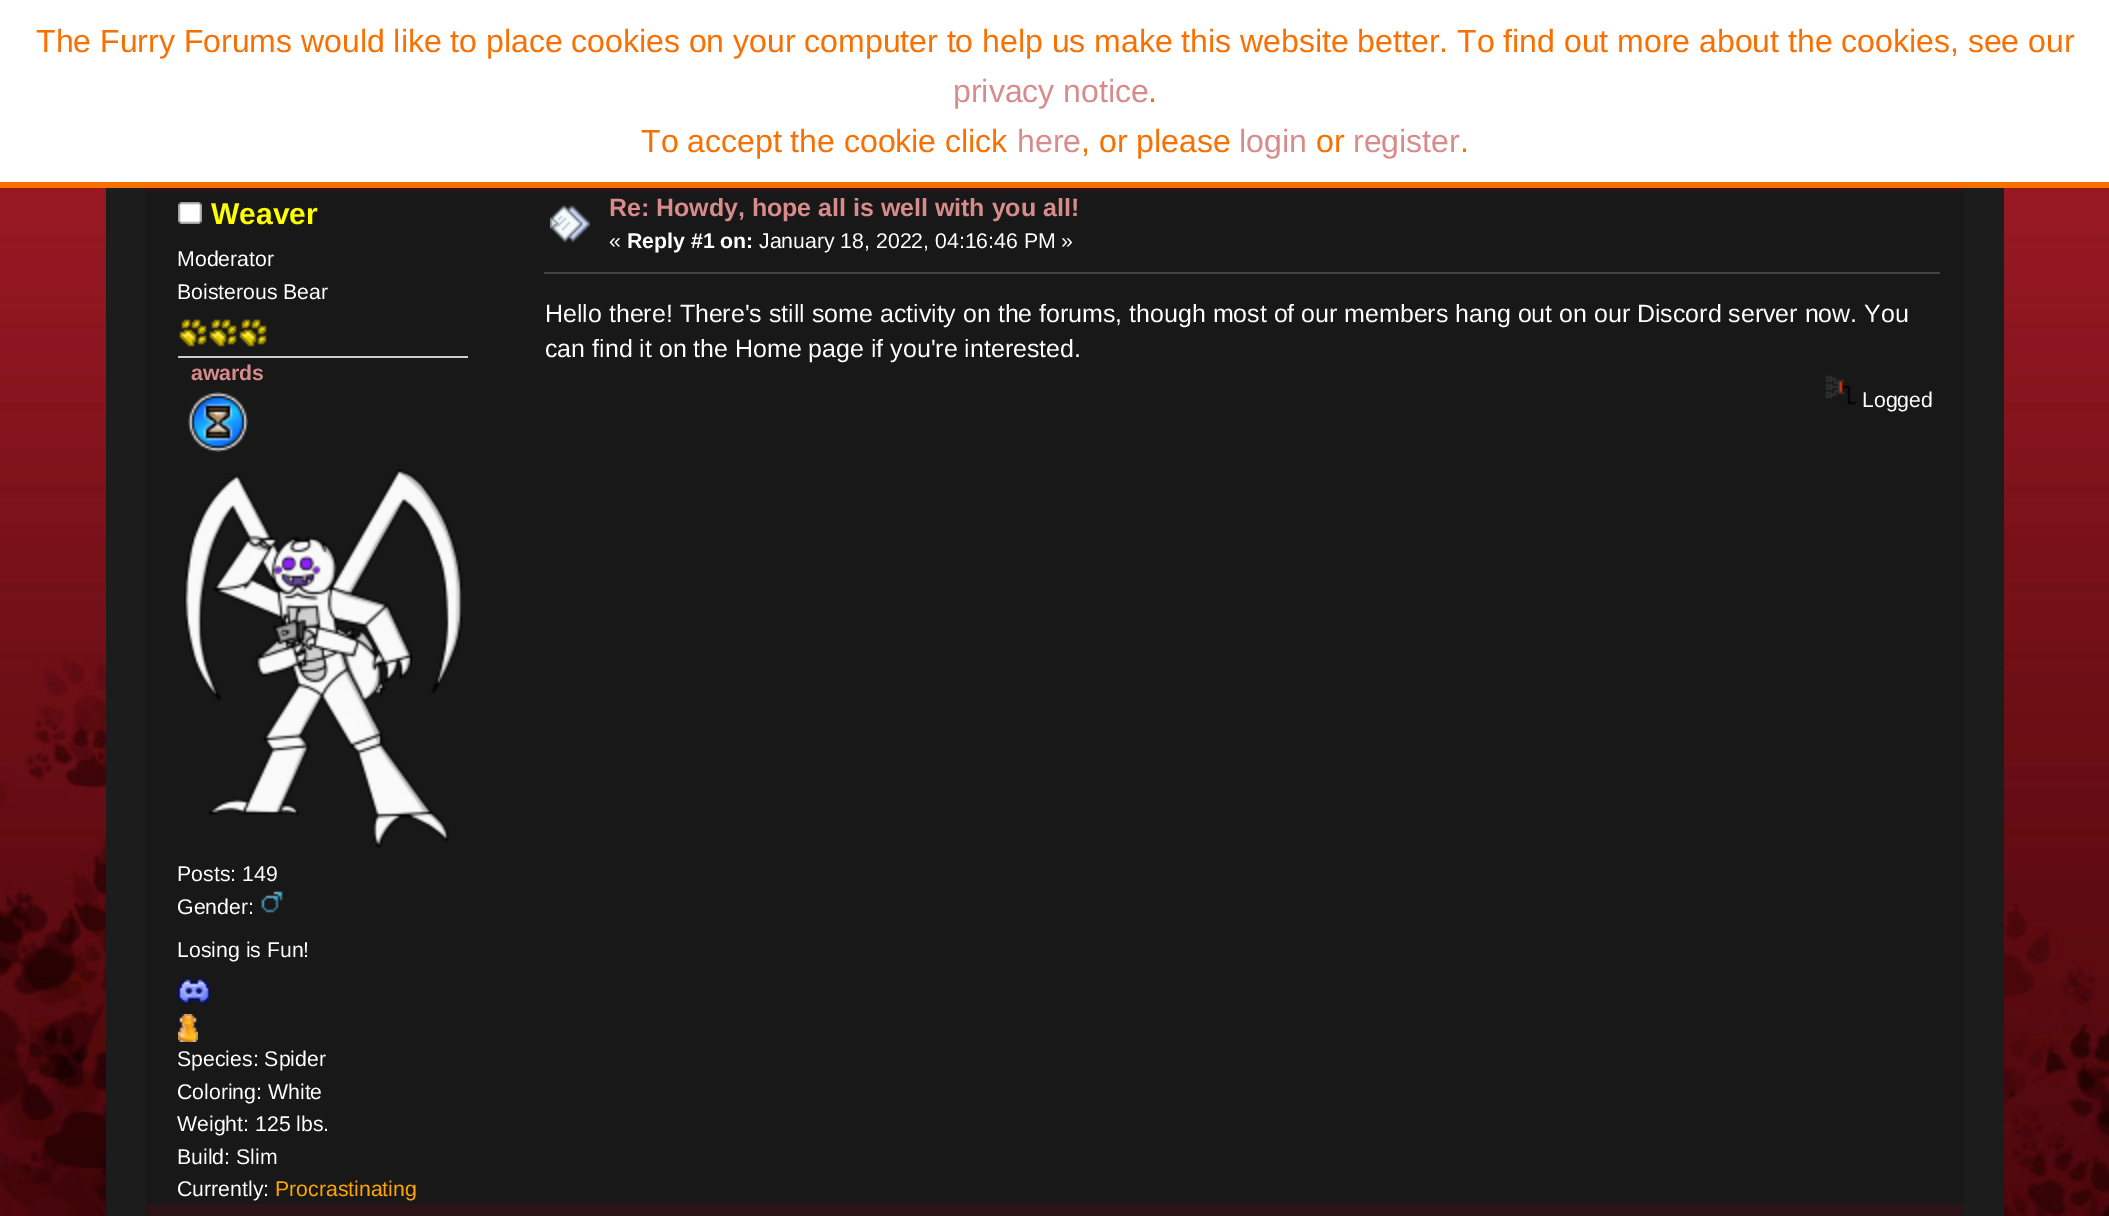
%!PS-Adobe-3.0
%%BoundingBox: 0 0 2109 1216
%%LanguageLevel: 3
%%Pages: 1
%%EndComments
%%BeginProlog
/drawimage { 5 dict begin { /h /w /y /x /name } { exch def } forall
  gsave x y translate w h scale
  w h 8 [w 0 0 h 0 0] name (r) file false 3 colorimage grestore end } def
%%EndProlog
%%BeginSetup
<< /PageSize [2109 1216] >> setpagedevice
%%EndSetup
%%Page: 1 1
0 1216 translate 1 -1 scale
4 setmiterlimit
1 setgray
0 0 2109 1216 rectfill
(images/1.raw) 0 188 2109 1028 drawimage
0.11 setgray
106 188 1898 1028 rectfill
0.976 0.435 0 setrgbcolor
0 182 2109 6 rectfill
0.094 setgray
146 192 1818 1012 rectfill
(images/2.raw) 146 188 1818 4 drawimage
(images/3.raw) 178 202 24 22 drawimage
(images/4.raw) 179 319 28 28 drawimage
(images/4.raw) 209 319 28 28 drawimage
(images/4.raw) 239 319 28 28 drawimage
0.8 setgray
178 356 290 2 rectfill
(images/5.raw) 188 392 60 60 drawimage
(images/6.raw) 184 469 279 379 drawimage
(images/7.raw) 261 891 22 22 drawimage
(images/8.raw) 178 977 32 28 drawimage
(images/9.raw) 178 1014 20 28 drawimage
(images/10.raw) 550 205 40 38 drawimage
0.267 setgray
544 272 1396 2 rectfill
(images/11.raw) 1825 375 31 30 drawimage
(images/12.raw) 146 1204 1818 12 drawimage
(images/13.raw) 1961 1210 3 6 drawimage
/LiberationSans-Regular [32 0 0 -32 0 0] selectfont
0.976 0.435 0 setrgbcolor
36 52 moveto (The Furry Forums would like to place cookies on your computer to help us make this website better. To find out more about the cookies, see our) show
0.847 0.545 0.545 setrgbcolor
953 102 moveto (privacy notice) show
0.976 0.435 0 setrgbcolor
1148 102 moveto (.) show
641 152 moveto (To accept the cookie click) show
0.847 0.545 0.545 setrgbcolor
1017 152 moveto (here) show
0.976 0.435 0 setrgbcolor
1081 152 moveto (, or please) show
0.847 0.545 0.545 setrgbcolor
1239 152 moveto (login) show
0.976 0.435 0 setrgbcolor
1316 152 moveto (or) show
0.847 0.545 0.545 setrgbcolor
1353 152 moveto (register) show
0.976 0.435 0 setrgbcolor
1460 152 moveto (.) show
/LiberationSans-Bold [30 0 0 -30 0 0] selectfont
1 1 0 setrgbcolor
211 224 moveto (Weaver) show
/LiberationSans-Regular [21.25 0 0 -21.25 0 0] selectfont
1 setgray
177 266 moveto (Moderator) show
177 299 moveto (Boisterous Bear) show
/LiberationSans-Bold [21.25 0 0 -21.25 0 0] selectfont
0.847 0.545 0.545 setrgbcolor
191 380 moveto (awards) show
/LiberationSans-Regular [21.25 0 0 -21.25 0 0] selectfont
1 setgray
177 881 moveto (Posts: 149) show
177 914 moveto (Gender:) show
177 957 moveto (Losing is Fun!) show
177 1066 moveto (Species: Spider) show
177 1099 moveto (Coloring: White) show
177 1131 moveto (Weight: 125 lbs.) show
177 1164 moveto (Build: Slim) show
177 1196 moveto (Currently:) show
1 0.647 0 setrgbcolor
275 1196 moveto (Procrastinating) show
/LiberationSans-Bold [24.95 0 0 -24.95 0 0] selectfont
0.847 0.545 0.545 setrgbcolor
609 216 moveto (Re: Howdy, hope all is well with you all!) show
/LiberationSans-Regular [21.25 0 0 -21.25 0 0] selectfont
1 setgray
609 248 moveto («) show
/LiberationSans-Bold [21.25 0 0 -21.25 0 0] selectfont
627 248 moveto (Reply #1 on:) show
/LiberationSans-Regular [21.25 0 0 -21.25 0 0] selectfont
759 248 moveto (January 18, 2022, 04:16:46 PM ») show
/LiberationSans-Regular [24.95 0 0 -24.95 0 0] selectfont
545 322 moveto (Hello there! There's still some activity on the forums, though most of our members hang out on our Discord server now. You) show
545 357 moveto (can find it on the Home page if you're interested.) show
/LiberationSans-Regular [21.25 0 0 -21.25 0 0] selectfont
1862 407 moveto (Logged) show
showpage
%%EOF
